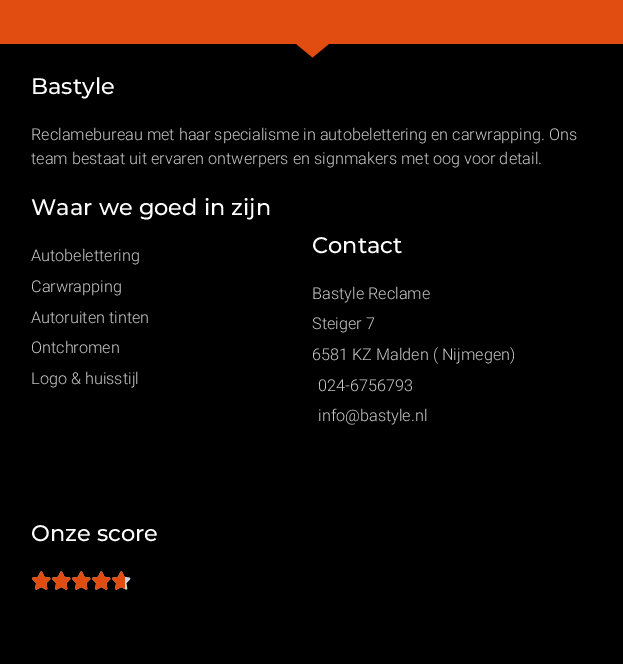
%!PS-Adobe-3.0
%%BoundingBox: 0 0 623 664
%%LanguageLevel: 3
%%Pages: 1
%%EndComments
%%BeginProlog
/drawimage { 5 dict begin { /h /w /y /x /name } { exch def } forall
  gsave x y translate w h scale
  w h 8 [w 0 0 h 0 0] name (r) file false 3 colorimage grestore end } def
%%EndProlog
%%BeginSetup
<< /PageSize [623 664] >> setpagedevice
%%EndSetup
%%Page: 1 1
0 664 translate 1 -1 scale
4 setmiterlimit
0.882 0.302 0.067 setrgbcolor
0 0 623 664 rectfill
0 setgray
0 44 623 620 rectfill
gsave
0 43 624 15 rectclip
0.882 0.302 0.067 setrgbcolor
newpath 312.5 57.5 moveto 294.5 42.5 lineto 330.5 42.5 lineto closepath fill
grestore
(images/1.raw) 32 571 19 19 drawimage
(images/2.raw) 32 571 19 19 drawimage
(images/1.raw) 52 571 19 19 drawimage
(images/2.raw) 52 571 19 19 drawimage
(images/1.raw) 72 571 19 19 drawimage
(images/2.raw) 72 571 19 19 drawimage
(images/1.raw) 92 571 19 19 drawimage
(images/2.raw) 92 571 19 19 drawimage
(images/1.raw) 112 571 19 19 drawimage
(images/3.raw) 112 571 13 19 drawimage
/Montserrat-Medium [22.5 0 0 -22.5 0 0] selectfont
1 setgray
31 94 moveto (Bastyle) show
/Roboto-Light [16.25 0 0 -16.25 0 0] selectfont
0.788 setgray
31 140 moveto (Reclamebureau met haar specialisme in autobelettering en carwrapping. Ons) show
31 164 moveto (team bestaat uit ervaren ontwerpers en signmakers met oog voor detail.) show
/Montserrat-Medium [22.5 0 0 -22.5 0 0] selectfont
1 setgray
31 215 moveto (Waar we goed in zijn) show
/Roboto-Light [16.25 0 0 -16.25 0 0] selectfont
0.788 setgray
31 261 moveto (Autobelettering) show
31 292 moveto (Carwrapping) show
31 323 moveto (Autoruiten tinten) show
31 353 moveto (Ontchromen) show
31 384 moveto (Logo & huisstijl) show
/Montserrat-Medium [22.5 0 0 -22.5 0 0] selectfont
1 setgray
312 253 moveto (Contact) show
/Roboto-Light [16.25 0 0 -16.25 0 0] selectfont
0.788 setgray
312 299 moveto (Bastyle Reclame) show
312 329 moveto (Steiger 7) show
312 360 moveto (6581 KZ Malden \( Nijmegen\)) show
318 391 moveto (024-6756793) show
318 421 moveto (info@bastyle.nl) show
/Montserrat-Medium [22.5 0 0 -22.5 0 0] selectfont
1 setgray
31 541 moveto (Onze score) show
showpage
%%EOF
